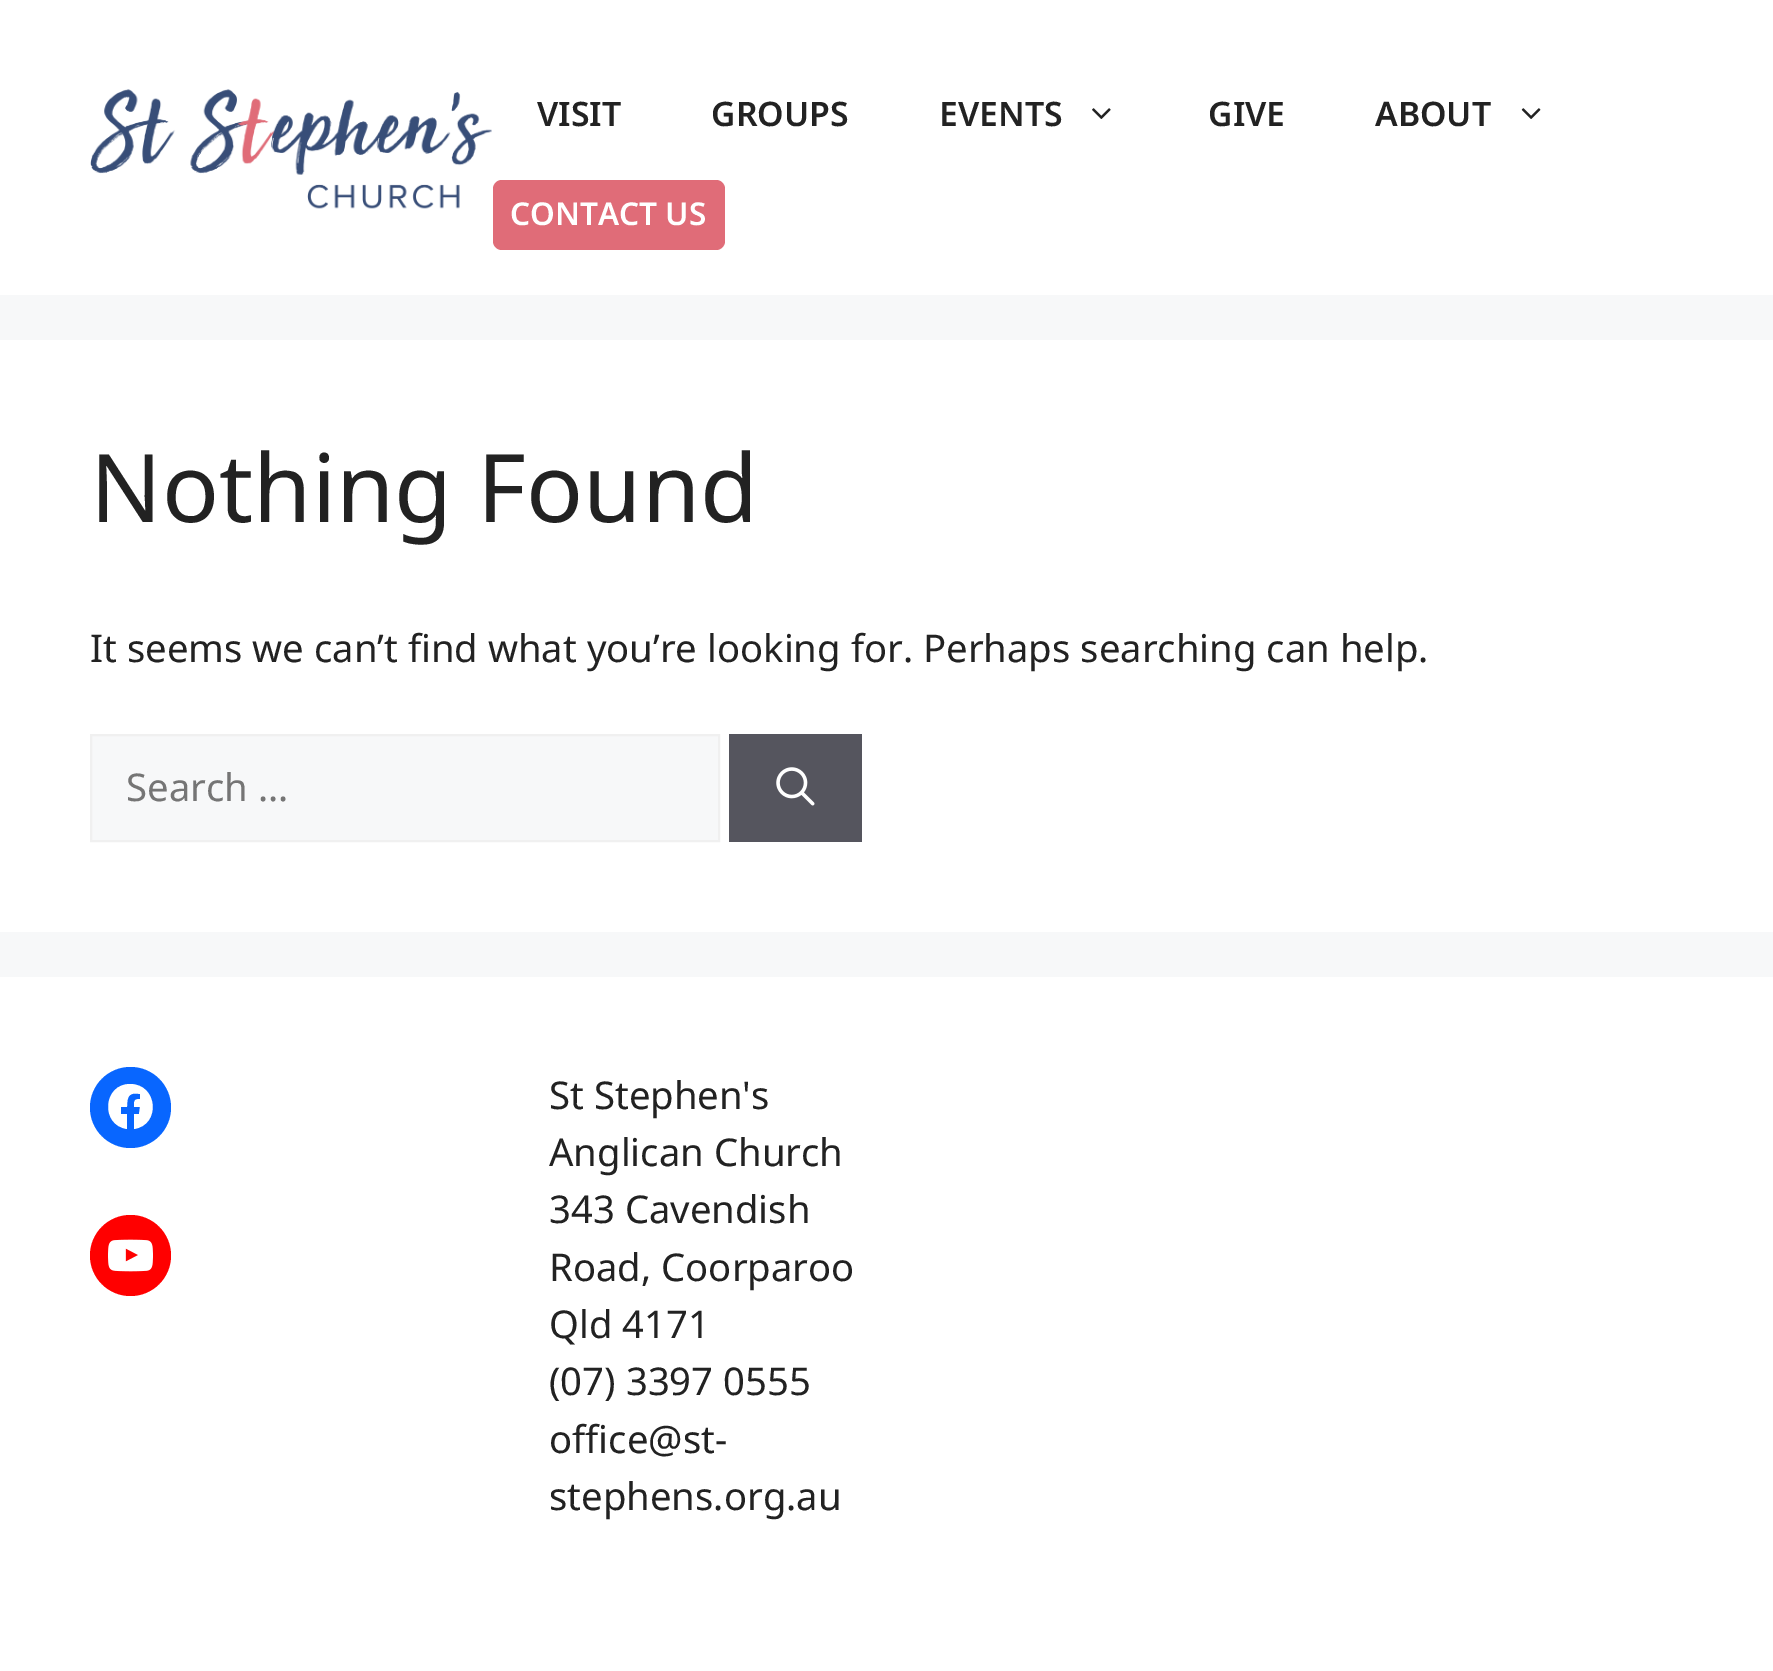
%!PS-Adobe-3.0
%%BoundingBox: 0 0 1773 1671
%%LanguageLevel: 3
%%Pages: 1
%%EndComments
%%BeginProlog
/rrect { 5 dict begin { /r /h /w /y /x } { exch def } forall
  x r add y moveto x w add y 2 copy h add r arct x w add y h add x 1 index r arct
  x y h add x y r arct x y 2 copy exch w add exch r arct closepath end } def
/drawimage { 5 dict begin { /h /w /y /x /name } { exch def } forall
  gsave x y translate w h scale
  w h 8 [w 0 0 h 0 0] name (r) file false 3 colorimage grestore end } def
%%EndProlog
%%BeginSetup
<< /PageSize [1773 1671] >> setpagedevice
%%EndSetup
%%Page: 1 1
0 1671 translate 1 -1 scale
4 setmiterlimit
0.969 0.973 0.976 setrgbcolor
0 0 1773 1671 rectfill
1 setgray
0 0 1773 295 rectfill
(images/1.raw) 90 89 402 120 drawimage
(images/2.raw) 1092 108 19 11 drawimage
(images/3.raw) 1521 108 20 11 drawimage
0.878 0.424 0.471 setrgbcolor
493 180 232 70 9 rrect fill
1 setgray
0 340 1773 592 rectfill
0.969 0.973 0.976 setrgbcolor
newpath 91 735 moveto 719 735 lineto 719 841 lineto 91 841 lineto closepath gsave fill grestore
0.941 setgray
2 setlinewidth
stroke
0.333 0.333 0.369 setrgbcolor
729 734 133 108 rectfill
(images/4.raw) 776 767 39 39 drawimage
1 setgray
0 977 1773 694 rectfill
0.031 0.4 1 setrgbcolor
newpath 130.5 1107.5 40.5 0 360 arc closepath fill
1 setgray
newpath 130 1084 moveto 103 1084 100 1125 127 1129 curveto 127 1114 lineto 121 1114 lineto 121 1107 lineto 127 1107 lineto 127 1096 129 1092 140 1094 curveto 140 1099 lineto 134 1099 134 1101 134 1107 curveto 140 1107 lineto 139 1114 lineto 134 1114 lineto 134 1129 lineto 161 1125 158 1084 130 1084 curveto closepath fill
1 0 0 setrgbcolor
newpath 130.5 1255.5 40.5 0 360 arc closepath fill
(images/5.raw) 108 1239 45 33 drawimage
/NotoSans-SemiBold [33.75 0 0 -33.75 0 0] selectfont
0.133 setgray
537 126 moveto (VISIT) show
711 126 moveto (GROUPS) show
939 126 moveto (EVENTS) show
1208 126 moveto (GIVE) show
1375 126 moveto (ABOUT) show
/NotoSans-SemiBold [31.5 0 0 -31.5 0 0] selectfont
1 setgray
510 225 moveto (CONTACT US) show
/NotoSans-Regular [94.5 0 0 -94.5 0 0] selectfont
0.133 setgray
90 522 moveto (Nothing Found) show
/NotoSans-Regular [38.25 0 0 -38.25 0 0] selectfont
90 662 moveto (It seems we can’t find what you’re looking for. Perhaps searching can help.) show
0.459 setgray
126 801 moveto (Search …) show
0.133 setgray
549 1109 moveto (St Stephen's) show
549 1166 moveto (Anglican Church) show
549 1223 moveto (343 Cavendish) show
549 1281 moveto (Road, Coorparoo) show
549 1338 moveto (Qld 4171) show
549 1395 moveto (\(07\) 3397 0555) show
549 1453 moveto (office@st-) show
549 1510 moveto (stephens.org.au) show
showpage
%%EOF
